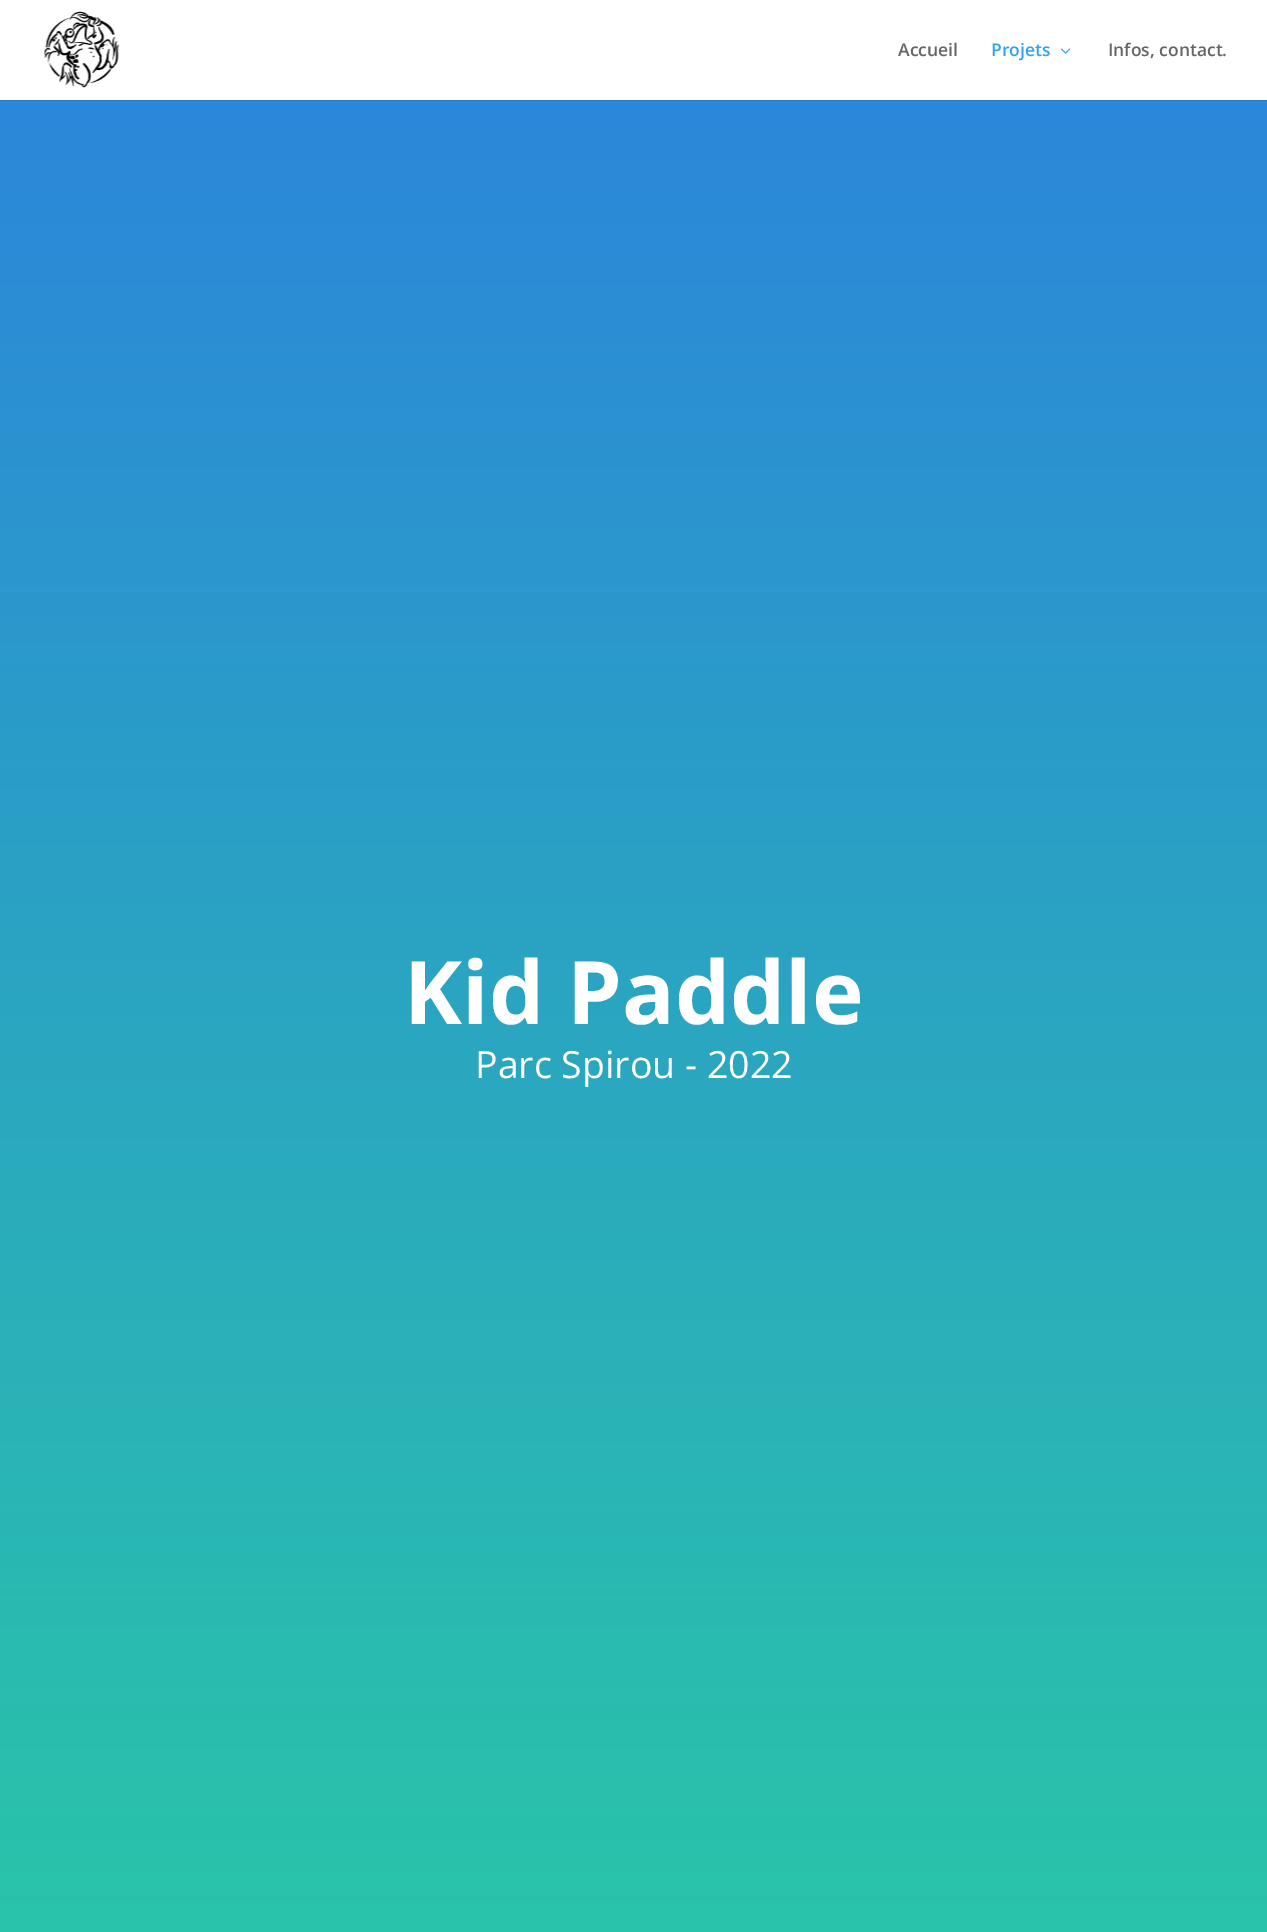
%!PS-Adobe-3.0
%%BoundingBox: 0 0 1267 1932
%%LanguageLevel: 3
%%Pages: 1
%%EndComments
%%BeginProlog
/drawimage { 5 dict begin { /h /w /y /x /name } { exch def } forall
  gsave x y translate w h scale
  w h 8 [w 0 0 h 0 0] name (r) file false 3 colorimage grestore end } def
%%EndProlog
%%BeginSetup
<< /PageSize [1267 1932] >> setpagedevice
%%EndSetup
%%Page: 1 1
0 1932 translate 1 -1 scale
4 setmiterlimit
1 setgray
0 0 1267 1932 rectfill
0.153 0.478 0.769 setrgbcolor
newpath 0 100 moveto 0 101 lineto 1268 101 lineto 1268 1 lineto 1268 100 lineto closepath fill
(images/1.raw) 44 11 76 77 drawimage
(images/2.raw) 1061 48 10 6 drawimage
gsave newpath 0 101 moveto 1267 101 lineto 1267 1932 lineto 0 1932 lineto closepath clip newpath
<< /ShadingType 2 /ColorSpace /DeviceRGB /Coords [634 95 634 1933] /Extend [true true] /Function << /FunctionType 2 /Domain [0 1] /C0 [0.169 0.529 0.855] /C1 [0.161 0.769 0.663] /N 1 >> >> shfill grestore
/OpenSans-SemiBold [17.5 0 0 -17.5 0 0] selectfont
0.4 setgray
898 56 moveto (Accueil) show
0.18 0.639 0.949 setrgbcolor
991 56 moveto (Projets) show
0.4 setgray
1108 56 moveto (Infos, contact.) show
/OpenSans-Bold [87.5 0 0 -87.5 0 0] selectfont
1 setgray
404 1024 moveto (Kid Paddle) show
/OpenSans-Regular [37.5 0 0 -37.5 0 0] selectfont
475 1078 moveto (Parc Spirou - 2022) show
showpage
%%EOF
